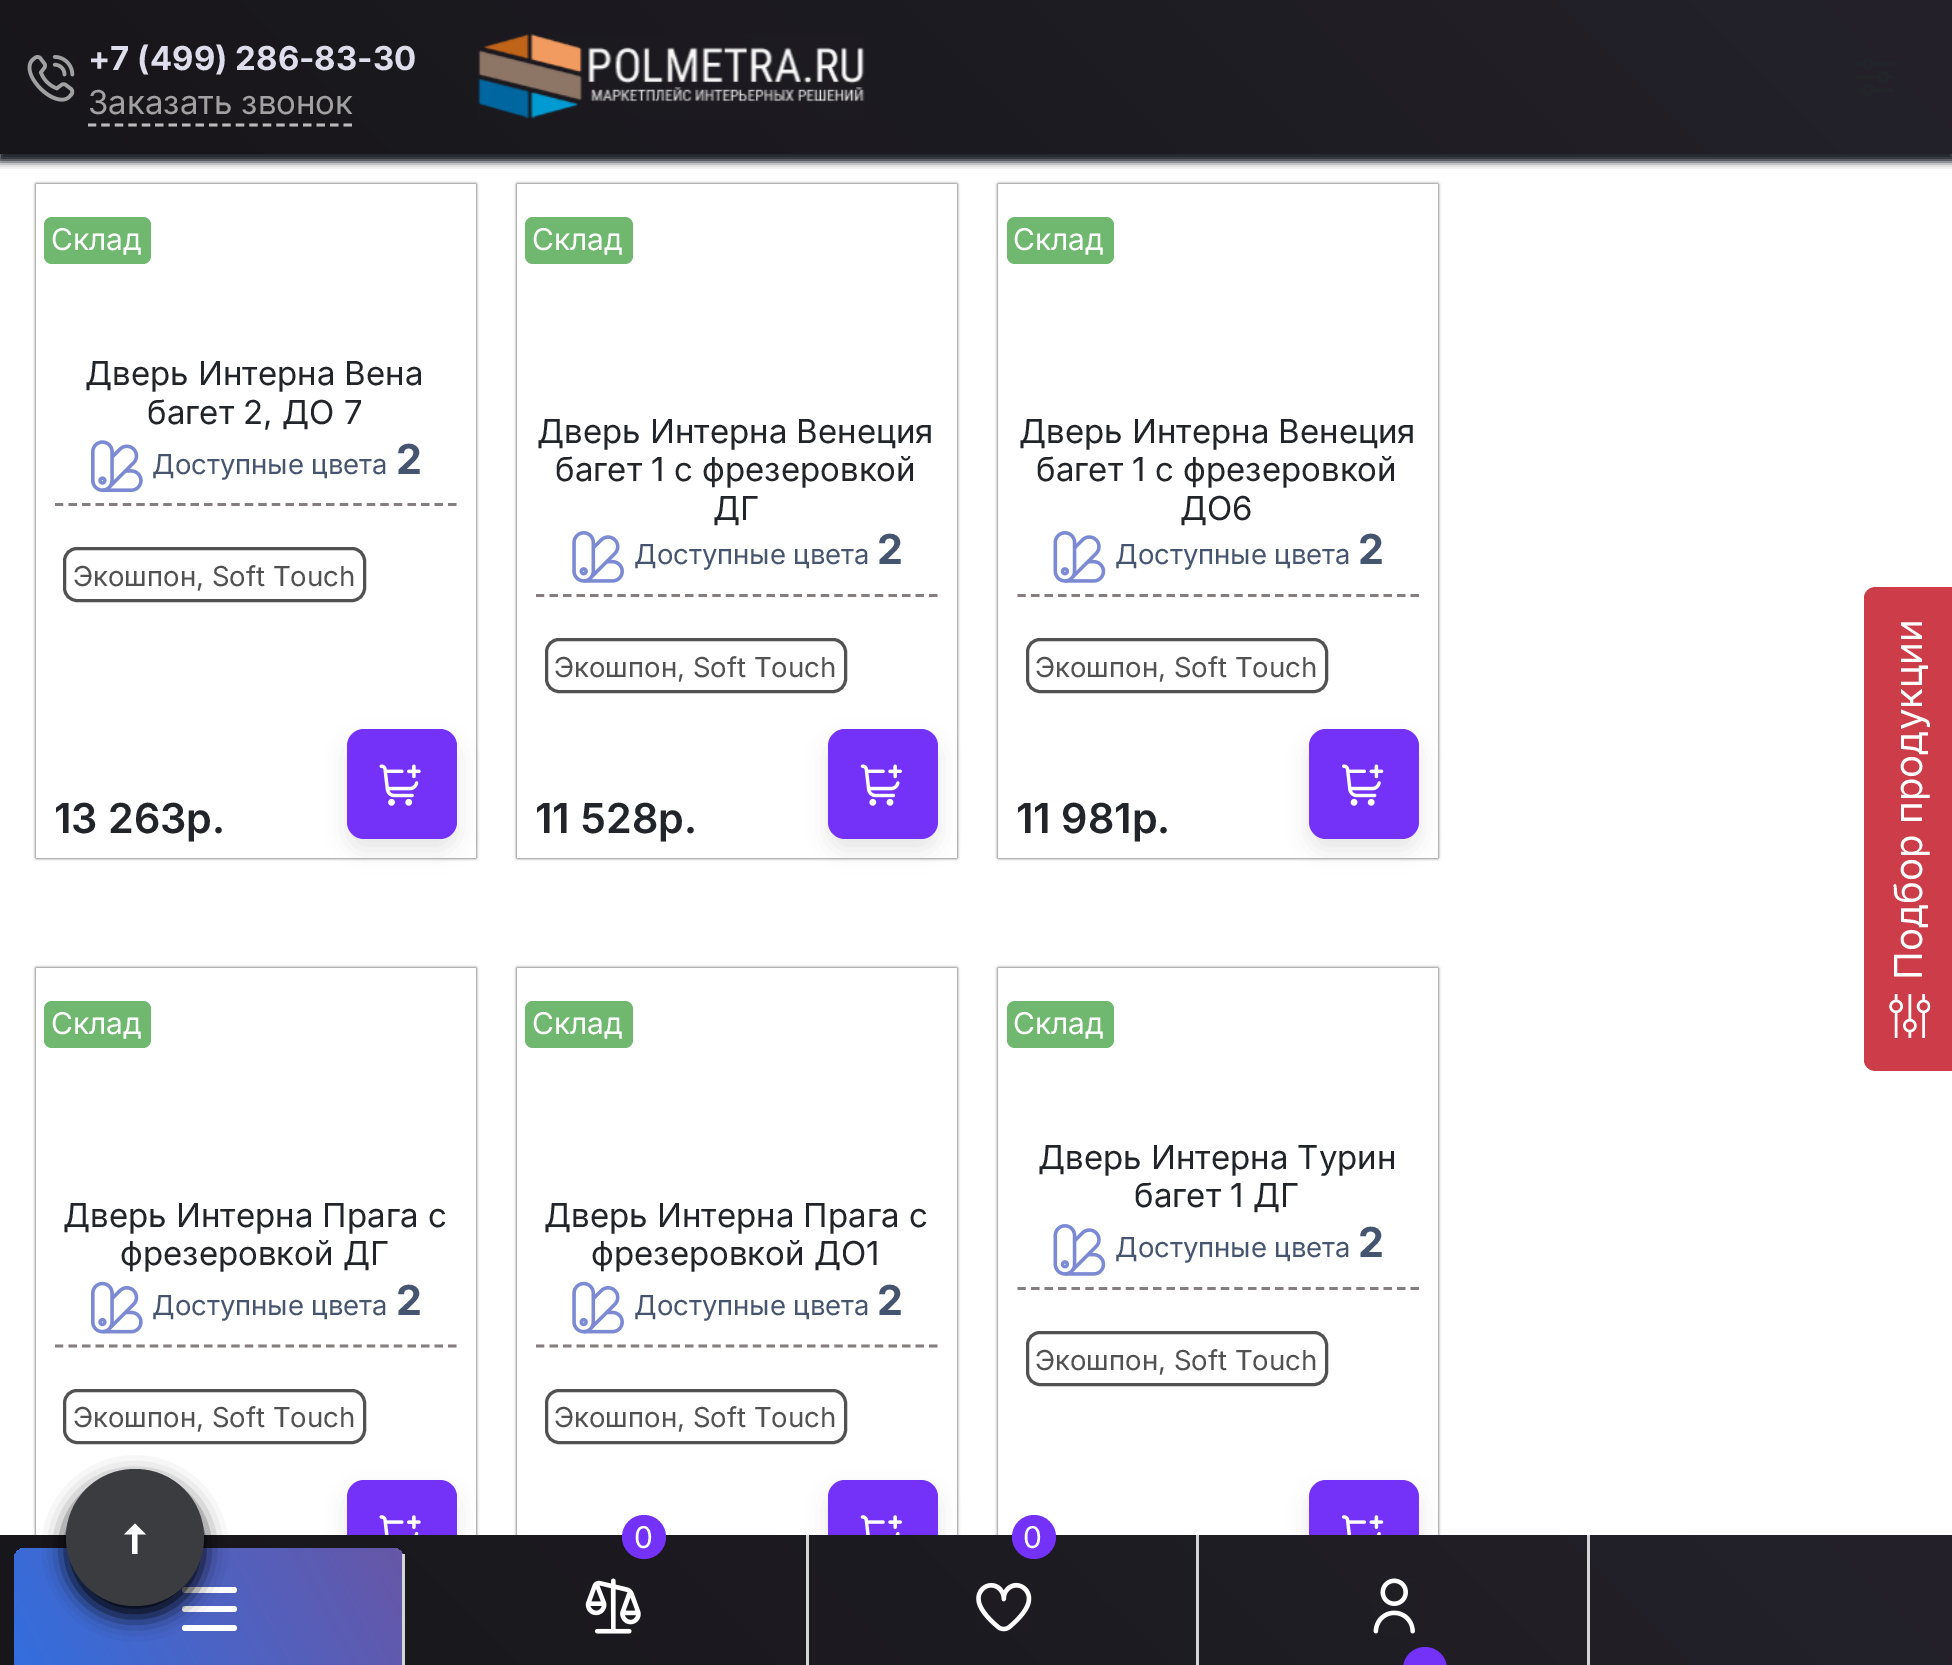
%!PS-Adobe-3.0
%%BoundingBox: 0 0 1952 1665
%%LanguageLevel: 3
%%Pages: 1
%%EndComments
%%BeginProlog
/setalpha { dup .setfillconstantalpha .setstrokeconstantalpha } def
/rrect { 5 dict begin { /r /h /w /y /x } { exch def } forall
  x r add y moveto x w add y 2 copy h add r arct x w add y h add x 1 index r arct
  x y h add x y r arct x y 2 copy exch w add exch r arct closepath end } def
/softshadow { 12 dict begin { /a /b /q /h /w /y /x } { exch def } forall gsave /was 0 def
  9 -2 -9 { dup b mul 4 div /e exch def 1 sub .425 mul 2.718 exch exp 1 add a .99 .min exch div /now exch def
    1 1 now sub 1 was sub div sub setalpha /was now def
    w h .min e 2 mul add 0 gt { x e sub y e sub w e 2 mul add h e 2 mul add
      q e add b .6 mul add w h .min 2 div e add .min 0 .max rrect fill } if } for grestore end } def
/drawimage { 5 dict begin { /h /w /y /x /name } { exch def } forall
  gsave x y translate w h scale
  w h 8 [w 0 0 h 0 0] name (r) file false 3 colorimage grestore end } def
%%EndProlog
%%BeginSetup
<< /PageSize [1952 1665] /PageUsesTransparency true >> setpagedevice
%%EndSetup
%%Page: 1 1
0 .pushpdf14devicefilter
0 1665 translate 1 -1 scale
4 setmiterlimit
1 setgray
0 0 1952 1665 rectfill
0.137 0.145 0.173 setrgbcolor
0 6 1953 154 0 4 1 softshadow
0 6 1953 154 0 4 1 softshadow
gsave newpath 0 0 moveto 1952 0 lineto 1952 154 lineto 0 154 lineto closepath clip newpath
<< /ShadingType 2 /ColorSpace /DeviceRGB /Coords [450 604 1503 -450] /Extend [true true] /Function << /FunctionType 2 /Domain [0 1] /C0 [0.09 0.086 0.102] /C1 [0.141 0.129 0.165] /N 1 >> >> shfill grestore
(images/1.raw) 27 55 48 47 drawimage
0.733 setgray
2.8 setlinewidth
[8.25 5.2] 0 setdash
newpath 88 125 moveto 352 125 lineto stroke
(images/2.raw) 478 34 387 85 drawimage
(images/3.raw) 1857 58 37 38 drawimage
0.255 setgray
36 184 440 674 0 1.5 1 softshadow
1 setgray
36 184 440 674 rectfill
0.439 0.722 0.439 setrgbcolor
44 217 107 47 8 rrect fill
0.518 0.494 0.494 setrgbcolor
[8.25 5.31] 0 setdash
newpath 55 504.5 moveto 456.5 504.5 lineto stroke
(images/4.raw) 91 440 52 52 drawimage
0.318 setgray
3 setlinewidth
[] 0 setdash
64.5 548.5 300 52 12.5 rrect stroke
0.529 setgray
347 740 110 110 17 11 0.2 softshadow
0.455 0.192 0.973 setrgbcolor
347 729 110 110 17 rrect fill
(images/5.raw) 379 764 42 42 drawimage
0.255 setgray
517 184 440 674 0 1.5 1 softshadow
1 setgray
517 184 440 674 rectfill
0.439 0.722 0.439 setrgbcolor
525 217 108 47 8 rrect fill
0.518 0.494 0.494 setrgbcolor
2.8 setlinewidth
[8.25 5.31] 0 setdash
newpath 536 595.5 moveto 938 595.5 lineto stroke
(images/6.raw) 572 531 52 52 drawimage
0.318 setgray
3 setlinewidth
[] 0 setdash
546.5 639.5 299 52 12.5 rrect stroke
0.529 setgray
828 740 110 110 17 11 0.2 softshadow
0.455 0.192 0.973 setrgbcolor
828 729 110 110 17 rrect fill
(images/7.raw) 860 764 42 42 drawimage
0.255 setgray
998 184 440 674 0 1.5 1 softshadow
1 setgray
998 184 440 674 rectfill
0.439 0.722 0.439 setrgbcolor
1007 217 107 47 8 rrect fill
0.518 0.494 0.494 setrgbcolor
2.8 setlinewidth
[8.25 5.31] 0 setdash
newpath 1017.5 595.5 moveto 1419 595.5 lineto stroke
(images/8.raw) 1053 531 53 52 drawimage
0.318 setgray
3 setlinewidth
[] 0 setdash
1027.5 639.5 299 52 12.5 rrect stroke
0.529 setgray
1309 740 110 110 17 11 0.2 softshadow
0.455 0.192 0.973 setrgbcolor
1309 729 110 110 17 rrect fill
(images/9.raw) 1342 764 42 42 drawimage
0.255 setgray
36 968 440 641 0 1.5 1 softshadow
1 setgray
36 968 440 567 rectfill
0.439 0.722 0.439 setrgbcolor
44 1001 107 47 8 rrect fill
0.518 0.494 0.494 setrgbcolor
2.8 setlinewidth
[8.25 5.31] 0 setdash
newpath 55 1346 moveto 456.5 1346 lineto stroke
(images/10.raw) 91 1281 52 53 drawimage
0.318 setgray
3 setlinewidth
[] 0 setdash
64.5 1390.5 300 52 12.5 rrect stroke
0.529 setgray
347 1491 110 110 17 11 0.2 softshadow
0.455 0.192 0.973 setrgbcolor
347 1480 110 110 17 rrect fill
(images/11.raw) 379 1515 42 20 drawimage
0.255 setgray
517 968 440 641 0 1.5 1 softshadow
1 setgray
517 968 440 567 rectfill
0.439 0.722 0.439 setrgbcolor
525 1001 108 47 8 rrect fill
0.518 0.494 0.494 setrgbcolor
2.8 setlinewidth
[8.25 5.31] 0 setdash
newpath 536 1346 moveto 938 1346 lineto stroke
(images/12.raw) 572 1281 52 53 drawimage
0.318 setgray
3 setlinewidth
[] 0 setdash
546.5 1390.5 299 52 12.5 rrect stroke
0.529 setgray
828 1491 110 110 17 11 0.2 softshadow
0.455 0.192 0.973 setrgbcolor
828 1480 110 110 17 rrect fill
(images/13.raw) 860 1515 42 20 drawimage
0.255 setgray
998 968 440 641 0 1.5 1 softshadow
1 setgray
998 968 440 567 rectfill
0.439 0.722 0.439 setrgbcolor
1007 1001 107 47 8 rrect fill
0.518 0.494 0.494 setrgbcolor
2.8 setlinewidth
[8.25 5.31] 0 setdash
newpath 1017.5 1288.5 moveto 1419 1288.5 lineto stroke
(images/8.raw) 1053 1224 53 52 drawimage
0.318 setgray
3 setlinewidth
[] 0 setdash
1027.5 1332.5 299 52 12.5 rrect stroke
0.529 setgray
1309 1491 110 110 17 11 0.2 softshadow
0.455 0.192 0.973 setrgbcolor
1309 1480 110 110 17 rrect fill
(images/14.raw) 1342 1515 42 20 drawimage
0.8 0.235 0.286 setrgbcolor
newpath 1864 1060 moveto 1864 598 lineto 1864 592 1869 587 1876 587 curveto 1952 587 lineto 1952 1071 lineto 1876 1071 lineto 1869 1071 1864 1066 1864 1060 curveto closepath fill
(images/15.raw) 1889 994 42 44 drawimage
gsave newpath 0 1535 moveto 1952 1535 lineto 1952 1665 lineto 0 1665 lineto closepath clip newpath
<< /ShadingType 2 /ColorSpace /DeviceRGB /Coords [455 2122 1497 1079] /Extend [true true] /Function << /FunctionType 2 /Domain [0 1] /C0 [0.09 0.086 0.102] /C1 [0.141 0.129 0.165] /N 1 >> >> shfill grestore
gsave
14 1548 390 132 11 rrect clip newpath
gsave newpath 25 1548 moveto 402 1548 lineto 402 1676 lineto 25 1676 lineto 19 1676 14 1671 14 1665 curveto 14 1559 lineto 14 1553 19 1548 25 1548 curveto closepath clip newpath
<< /ShadingType 2 /ColorSpace /DeviceRGB /Coords [29 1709 386 1519] /Extend [true true] /Function << /FunctionType 2 /Domain [0 1] /C0 [0.196 0.435 0.875] /C1 [0.404 0.341 0.655] /N 1 >> >> shfill grestore
grestore
1 setgray
182 1587 55 6 3 rrect fill
182 1606 55 6 3 rrect fill
182 1625 55 6 3 rrect fill
0 setgray
66 1480 138 137 68.5 11 1 softshadow
0.227 0.235 0.251 setrgbcolor
66 1469 138 137 68.5 rrect fill
1 setgray
newpath 124 1534.5 moveto 132 1534.5 lineto 132 1554 lineto 137.5 1554 lineto 137.5 1534.5 lineto 146 1534.5 lineto 135 1523.5 lineto closepath fill
gsave
14 1548 390 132 11 rrect clip newpath
gsave newpath 402 1548 moveto 403 1548 lineto 403 1554 lineto 402 1554 lineto closepath clip newpath
<< /ShadingType 2 /ColorSpace /DeviceRGB /Coords [417 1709 774 1519] /Extend [true true] /Function << /FunctionType 2 /Domain [0 1] /C0 [0.196 0.435 0.875] /C1 [0.404 0.341 0.655] /N 1 >> >> shfill grestore
grestore
0.827 0.839 0.835 setrgbcolor
402 1554 3 111 rectfill
806 1535 3 130 rectfill
0.455 0.192 0.973 setrgbcolor
newpath 644 1537 22 0 360 arc closepath fill
(images/16.raw) 585 1578 56 56 drawimage
0.827 0.839 0.835 setrgbcolor
1196 1535 3 130 rectfill
0.455 0.192 0.973 setrgbcolor
newpath 1034 1537 22 0 360 arc closepath fill
(images/17.raw) 976 1582 56 50 drawimage
0.827 0.839 0.835 setrgbcolor
1587 1535 3 130 rectfill
(images/18.raw) 1373 1578 42 56 drawimage
0.455 0.192 0.973 setrgbcolor
1403 1647 44 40 22 rrect fill
/Inter-Bold [33 0 0 -33 0 0] selectfont
0.871 0.867 0.922 setrgbcolor
88 70 moveto (+7 \(499\) 286-83-30) show
/Inter-Regular [33 0 0 -33 0 0] selectfont
0.631 setgray
88 114 moveto (Заказать звонок) show
/Inter-Regular [30 0 0 -30 0 0] selectfont
1 setgray
51 250 moveto (Склад) show
/Inter-Regular [33 0 0 -33 0 0] selectfont
0.129 0.145 0.161 setrgbcolor
85 385 moveto (Дверь Интерна Вена) show
147 424 moveto (багет 2, ДО 7) show
/Inter-Regular [27.5 0 0 -27.5 0 0] selectfont
0.275 0.333 0.435 setrgbcolor
152 474 moveto (Доступные цвета) show
/Inter-Bold [41.25 0 0 -41.25 0 0] selectfont
396 474 moveto (2) show
/Inter-Regular [27.5 0 0 -27.5 0 0] selectfont
0.318 setgray
73 586 moveto (Экошпон, Soft Touch) show
/Inter-SemiBold [41.25 0 0 -41.25 0 0] selectfont
0.129 0.145 0.161 setrgbcolor
54 833 moveto (13 263р.) show
/Inter-Regular [30 0 0 -30 0 0] selectfont
1 setgray
532 250 moveto (Склад) show
/Inter-Regular [33 0 0 -33 0 0] selectfont
0.129 0.145 0.161 setrgbcolor
537 443 moveto (Дверь Интерна Венеция) show
555 481 moveto (багет 1 с фрезеровкой) show
713 520 moveto (ДГ) show
/Inter-Regular [27.5 0 0 -27.5 0 0] selectfont
0.275 0.333 0.435 setrgbcolor
634 564 moveto (Доступные цвета) show
/Inter-Bold [41.25 0 0 -41.25 0 0] selectfont
877 564 moveto (2) show
/Inter-Regular [27.5 0 0 -27.5 0 0] selectfont
0.318 setgray
554 677 moveto (Экошпон, Soft Touch) show
/Inter-SemiBold [41.25 0 0 -41.25 0 0] selectfont
0.129 0.145 0.161 setrgbcolor
535 833 moveto (11 528р.) show
/Inter-Regular [30 0 0 -30 0 0] selectfont
1 setgray
1013 250 moveto (Склад) show
/Inter-Regular [33 0 0 -33 0 0] selectfont
0.129 0.145 0.161 setrgbcolor
1019 443 moveto (Дверь Интерна Венеция) show
1036 481 moveto (багет 1 с фрезеровкой) show
1180 520 moveto (ДО6) show
/Inter-Regular [27.5 0 0 -27.5 0 0] selectfont
0.275 0.333 0.435 setrgbcolor
1115 564 moveto (Доступные цвета) show
/Inter-Bold [41.25 0 0 -41.25 0 0] selectfont
1358 564 moveto (2) show
/Inter-Regular [27.5 0 0 -27.5 0 0] selectfont
0.318 setgray
1035 677 moveto (Экошпон, Soft Touch) show
/Inter-SemiBold [41.25 0 0 -41.25 0 0] selectfont
0.129 0.145 0.161 setrgbcolor
1016 833 moveto (11 981р.) show
/Inter-Regular [30 0 0 -30 0 0] selectfont
1 setgray
51 1034 moveto (Склад) show
/Inter-Regular [33 0 0 -33 0 0] selectfont
0.129 0.145 0.161 setrgbcolor
63 1227 moveto (Дверь Интерна Прага с) show
120 1265 moveto (фрезеровкой ДГ) show
/Inter-Regular [27.5 0 0 -27.5 0 0] selectfont
0.275 0.333 0.435 setrgbcolor
152 1315 moveto (Доступные цвета) show
/Inter-Bold [41.25 0 0 -41.25 0 0] selectfont
396 1315 moveto (2) show
/Inter-Regular [27.5 0 0 -27.5 0 0] selectfont
0.318 setgray
73 1427 moveto (Экошпон, Soft Touch) show
/Inter-Regular [30 0 0 -30 0 0] selectfont
1 setgray
532 1034 moveto (Склад) show
/Inter-Regular [33 0 0 -33 0 0] selectfont
0.129 0.145 0.161 setrgbcolor
544 1227 moveto (Дверь Интерна Прага с) show
591 1265 moveto (фрезеровкой ДО1) show
/Inter-Regular [27.5 0 0 -27.5 0 0] selectfont
0.275 0.333 0.435 setrgbcolor
634 1315 moveto (Доступные цвета) show
/Inter-Bold [41.25 0 0 -41.25 0 0] selectfont
877 1315 moveto (2) show
/Inter-Regular [27.5 0 0 -27.5 0 0] selectfont
0.318 setgray
554 1427 moveto (Экошпон, Soft Touch) show
/Inter-Regular [30 0 0 -30 0 0] selectfont
1 setgray
1013 1034 moveto (Склад) show
/Inter-Regular [33 0 0 -33 0 0] selectfont
0.129 0.145 0.161 setrgbcolor
1038 1169 moveto (Дверь Интерна Турин) show
1134 1207 moveto (багет 1 ДГ) show
/Inter-Regular [27.5 0 0 -27.5 0 0] selectfont
0.275 0.333 0.435 setrgbcolor
1115 1257 moveto (Доступные цвета) show
/Inter-Bold [41.25 0 0 -41.25 0 0] selectfont
1358 1257 moveto (2) show
/Inter-Regular [27.5 0 0 -27.5 0 0] selectfont
0.318 setgray
1035 1370 moveto (Экошпон, Soft Touch) show
/Inter-Regular [38.5 0 0 -38.5 0 0] selectfont
1 setgray
gsave 1922 980 translate -90 rotate 0 0 moveto (Подбор продукции) show grestore
/Inter-Regular [30 0 0 -30 0 0] selectfont
634 1548 moveto (0) show
1023 1548 moveto (0) show
.poppdf14devicefilter showpage
%%EOF
